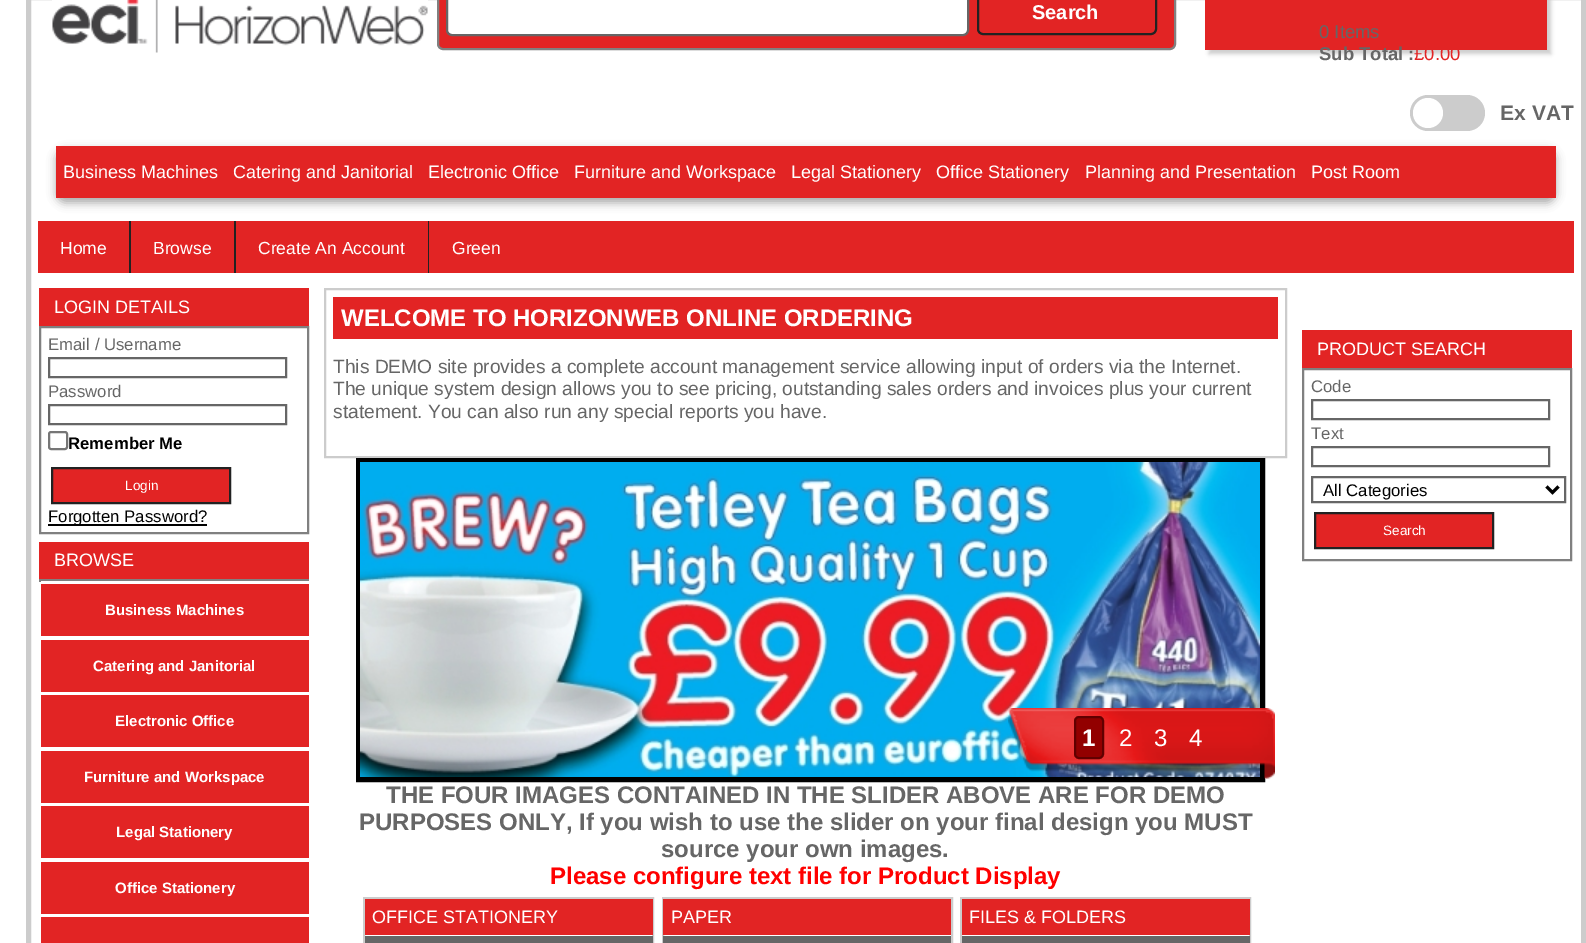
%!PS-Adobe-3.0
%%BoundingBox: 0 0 1586 943
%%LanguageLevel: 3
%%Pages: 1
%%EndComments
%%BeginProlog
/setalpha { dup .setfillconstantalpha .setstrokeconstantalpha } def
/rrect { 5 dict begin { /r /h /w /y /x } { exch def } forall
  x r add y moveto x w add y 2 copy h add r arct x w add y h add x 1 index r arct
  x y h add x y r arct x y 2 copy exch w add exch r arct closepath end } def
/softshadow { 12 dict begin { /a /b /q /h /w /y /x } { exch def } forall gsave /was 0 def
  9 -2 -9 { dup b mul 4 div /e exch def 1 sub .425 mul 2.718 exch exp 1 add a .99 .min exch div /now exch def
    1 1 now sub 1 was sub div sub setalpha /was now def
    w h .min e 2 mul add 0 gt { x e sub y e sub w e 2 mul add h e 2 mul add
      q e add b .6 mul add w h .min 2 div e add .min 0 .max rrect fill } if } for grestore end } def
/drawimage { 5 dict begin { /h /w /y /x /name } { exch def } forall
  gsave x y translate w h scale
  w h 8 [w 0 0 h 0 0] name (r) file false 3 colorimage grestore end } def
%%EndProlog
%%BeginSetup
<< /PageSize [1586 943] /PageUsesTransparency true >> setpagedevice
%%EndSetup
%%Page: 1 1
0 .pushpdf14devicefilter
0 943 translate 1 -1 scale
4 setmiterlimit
1 setgray
0 0 1586 943 rectfill
0.8 setgray
5 setlinewidth
28.5 -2.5 1555 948 rectstroke
(images/1.raw) 52 0 376 53 drawimage
0.886 0.141 0.141 setrgbcolor
438 -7 737 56 5 rrect gsave fill grestore
0.502 setgray
2 setlinewidth
stroke
1 setgray
447 -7 521 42 5 rrect gsave fill grestore
0.4 setgray
stroke
0.133 setgray
978 -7 178 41 5 rrect stroke
0.8 setgray
1209 -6 342 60 0 2 1 softshadow
0.886 0.141 0.141 setrgbcolor
1205 0 342 50 rectfill
0.8 setgray
1410 95 75 36 18 rrect fill
1 setgray
newpath 1428 113 15 0 360 arc closepath fill
0.667 setgray
56 150 1500 53 9 4.5 1 softshadow
0.886 0.141 0.141 setrgbcolor
56 146 1500 52 rectfill
38 221 1536 52 rectfill
0.133 setgray
129 221 2 52 rectfill
234 221 2 52 rectfill
428 221 1 52 rectfill
0.886 0.141 0.141 setrgbcolor
39 288 270 38 rectfill
0.502 setgray
40 327 268 206 rectstroke
0.4 setgray
49 358 237 19 rectstroke
49 405 237 19 rectstroke
0.463 setgray
49 432 18 17 2 rrect stroke
0.886 0.141 0.141 setrgbcolor
newpath 52 468 moveto 230 468 lineto 230 503 lineto 52 503 lineto closepath gsave fill grestore
0.133 setgray
stroke
0 setgray
48 524 159 2 rectfill
0.886 0.141 0.141 setrgbcolor
39 542 270 37 rectfill
0.502 setgray
39 579 270 3 rectfill
1 setgray
41 581 270 1 rectfill
0.886 0.141 0.141 setrgbcolor
41 584 268 52 rectfill
41 640 268 52 rectfill
41 695 268 52 rectfill
41 751 268 52 rectfill
41 806 268 52 rectfill
41 862 268 52 rectfill
41 917 268 26 rectfill
0.8 setgray
325 289 961 168 rectstroke
0.886 0.141 0.141 setrgbcolor
333 297 945 42 rectfill
0 setgray
5 setlinewidth
358.5 460.5 904 319 rectstroke
(images/2.raw) 360 462 900 315 drawimage
(images/3.raw) 1008 708 267 71 drawimage
0.573 0 0 setrgbcolor
1075 717 28 41 4 rrect gsave fill grestore
0.38 0 0 setrgbcolor
2 setlinewidth
stroke
0.8 setgray
364 898 289 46 rectstroke
0.886 0.141 0.141 setrgbcolor
365 899 288 36 rectfill
0.4 setgray
365 936 288 7 rectfill
0.8 setgray
663 898 289 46 rectstroke
0.886 0.141 0.141 setrgbcolor
663 899 288 36 rectfill
0.4 setgray
663 936 288 7 rectfill
0.8 setgray
961 898 289 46 rectstroke
0.886 0.141 0.141 setrgbcolor
962 899 288 36 rectfill
0.4 setgray
962 936 288 7 rectfill
0.886 0.141 0.141 setrgbcolor
1302 330 270 38 rectfill
0.502 setgray
1303 369 268 191 rectstroke
0.4 setgray
1312 400 237 19 rectstroke
1312 447 237 19 rectstroke
1312 477 253 25 rectstroke
0 setgray
3 setlinewidth
newpath 1546.5 486.5 moveto 1552.5 492.5 lineto 1558.5 486.5 lineto stroke
0.886 0.141 0.141 setrgbcolor
newpath 1315 513 moveto 1493 513 lineto 1493 548 lineto 1315 548 lineto closepath gsave fill grestore
0.133 setgray
2 setlinewidth
stroke
/LiberationSans-Bold [20 0 0 -20 0 0] selectfont
1 setgray
1032 19 moveto (Search) show
/LiberationSans-Regular [18.5 0 0 -18.5 0 0] selectfont
0.4 setgray
1319 38 moveto (0 Items) show
/LiberationSans-Bold [18.5 0 0 -18.5 0 0] selectfont
1319 60 moveto (Sub Total :) show
/LiberationSans-Regular [18.5 0 0 -18.5 0 0] selectfont
0.886 0.141 0.141 setrgbcolor
1414 60 moveto (£0.00) show
/LiberationSans-Bold [21 0 0 -21 0 0] selectfont
0.4 setgray
1500 120 moveto (Ex VAT) show
/LiberationSans-Regular [18 0 0 -18 0 0] selectfont
1 setgray
63 178 moveto (Business Machines) show
233 178 moveto (Catering and Janitorial) show
428 178 moveto (Electronic Office) show
574 178 moveto (Furniture and Workspace) show
791 178 moveto (Legal Stationery) show
936 178 moveto (Office Stationery) show
1085 178 moveto (Planning and Presentation) show
1311 178 moveto (Post Room) show
/LiberationSans-Regular [17.5 0 0 -17.5 0 0] selectfont
60 254 moveto (Home) show
153 254 moveto (Browse) show
258 254 moveto (Create An Account) show
452 254 moveto (Green) show
/LiberationSans-Regular [18 0 0 -18 0 0] selectfont
54 313 moveto (LOGIN DETAILS) show
/LiberationSans-Regular [16.75 0 0 -16.75 0 0] selectfont
0.4 setgray
48 350 moveto (Email / Username) show
48 397 moveto (Password) show
/LiberationSans-Bold [16.75 0 0 -16.75 0 0] selectfont
0 setgray
68 449 moveto (Remember Me) show
/LiberationSans-Regular [13.5 0 0 -13.5 0 0] selectfont
1 setgray
125 490 moveto (Login) show
/LiberationSans-Regular [16.75 0 0 -16.75 0 0] selectfont
0 setgray
48 522 moveto (Forgotten Password?) show
/LiberationSans-Regular [18 0 0 -18 0 0] selectfont
1 setgray
54 566 moveto (BROWSE) show
/LiberationSans-Bold [15 0 0 -15 0 0] selectfont
105 615 moveto (Business Machines) show
93 671 moveto (Catering and Janitorial) show
115 726 moveto (Electronic Office) show
84 782 moveto (Furniture and Workspace) show
116 837 moveto (Legal Stationery) show
115 893 moveto (Office Stationery) show
/LiberationSans-Bold [24 0 0 -24 0 0] selectfont
341 326 moveto (WELCOME TO HORIZONWEB ONLINE ORDERING) show
/LiberationSans-Regular [19.2 0 0 -19.2 0 0] selectfont
0.4 setgray
333 373 moveto (This DEMO site provides a complete account management service allowing input of orders via the Internet.) show
333 395 moveto (The unique system design allows you to see pricing, outstanding sales orders and invoices plus your current) show
333 418 moveto (statement. You can also run any special reports you have.) show
/LiberationSans-Bold [24 0 0 -24 0 0] selectfont
1 setgray
1082 746 moveto (1) show
/LiberationSans-Regular [24 0 0 -24 0 0] selectfont
1119 746 moveto (2) show
1154 746 moveto (3) show
1189 746 moveto (4) show
/LiberationSans-Bold [24 0 0 -24 0 0] selectfont
0.4 setgray
386 803 moveto (THE FOUR IMAGES CONTAINED IN THE SLIDER ABOVE ARE FOR DEMO) show
359 830 moveto (PURPOSES ONLY, If you wish to use the slider on your final design you MUST) show
661 857 moveto (source your own images.) show
1 0 0 setrgbcolor
550 884 moveto (Please configure text file for Product Display) show
/LiberationSans-Regular [18 0 0 -18 0 0] selectfont
1 setgray
372 923 moveto (OFFICE STATIONERY) show
671 923 moveto (PAPER) show
969 923 moveto (FILES & FOLDERS) show
1317 355 moveto (PRODUCT SEARCH) show
/LiberationSans-Regular [16.75 0 0 -16.75 0 0] selectfont
0.4 setgray
1311 392 moveto (Code) show
1311 439 moveto (Text) show
0 setgray
1323 496 moveto (All Categories) show
/LiberationSans-Regular [13.5 0 0 -13.5 0 0] selectfont
1 setgray
1383 535 moveto (Search) show
.poppdf14devicefilter showpage
%%EOF
